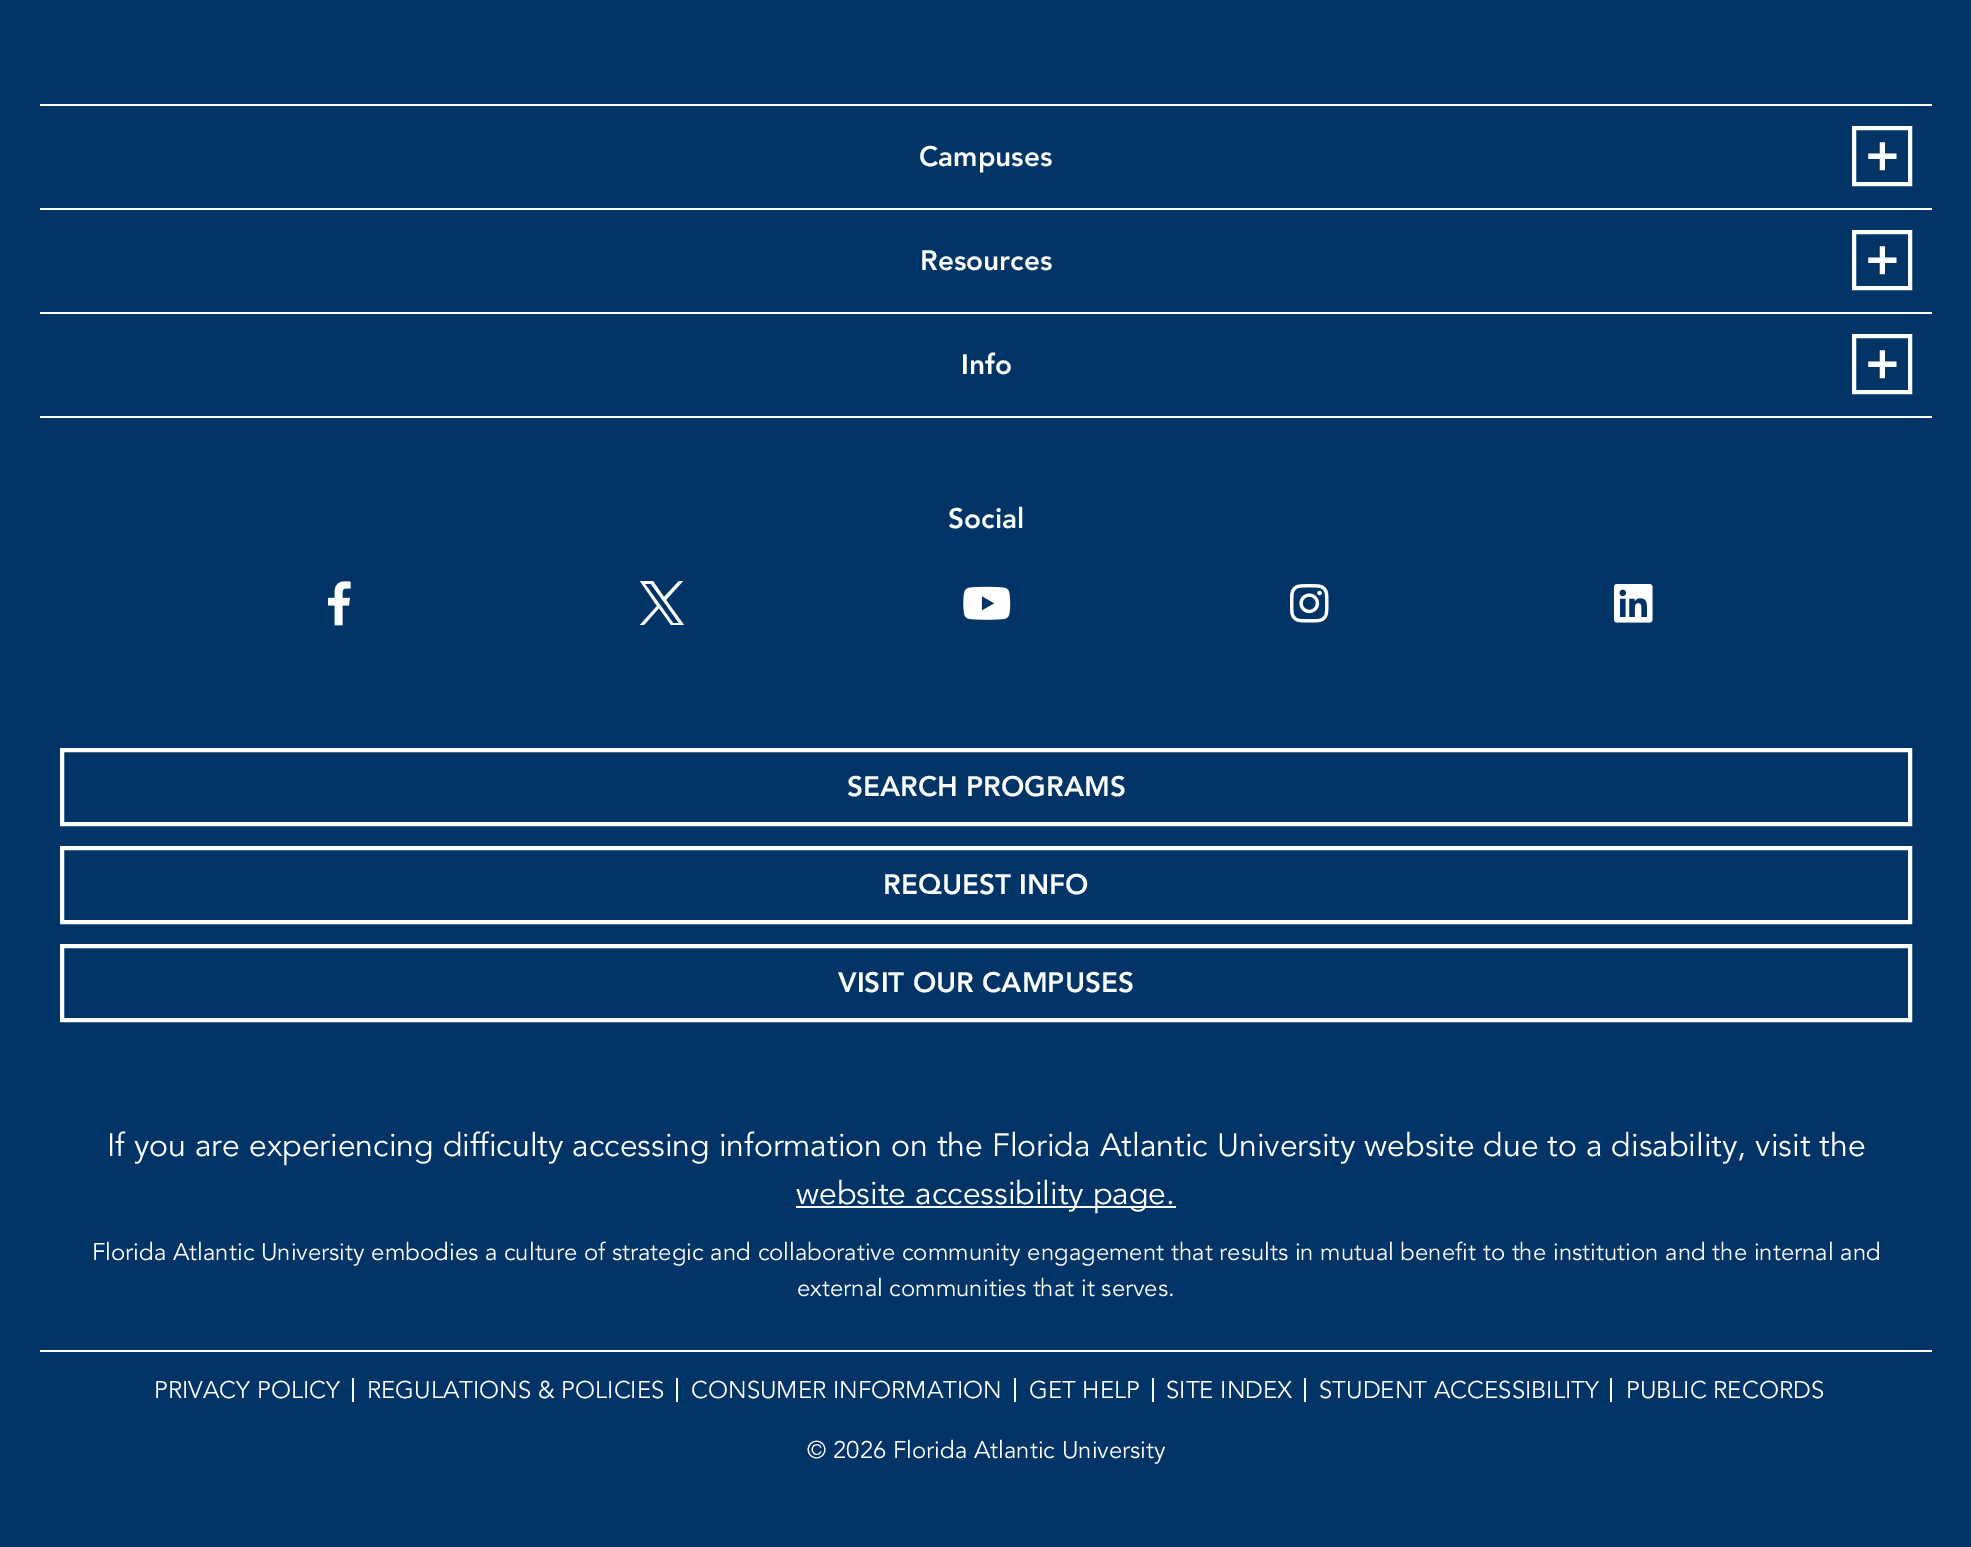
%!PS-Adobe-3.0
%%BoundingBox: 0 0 1971 1547
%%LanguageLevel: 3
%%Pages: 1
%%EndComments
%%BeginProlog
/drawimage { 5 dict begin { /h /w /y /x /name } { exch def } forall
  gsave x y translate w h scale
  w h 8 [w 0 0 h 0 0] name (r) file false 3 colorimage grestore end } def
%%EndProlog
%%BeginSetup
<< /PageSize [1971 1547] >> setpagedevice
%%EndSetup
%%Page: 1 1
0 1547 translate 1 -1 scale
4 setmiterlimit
0 0.2 0.4 setrgbcolor
0 0 1971 1547 rectfill
1 setgray
40 104 1892 2 rectfill
40 208 1892 2 rectfill
4 setlinewidth
1854 128 56 56 rectstroke
40 312 1892 2 rectfill
1854 232 56 56 rectstroke
40 416 1892 2 rectfill
1854 336 56 56 rectstroke
(images/1.raw) 328 581 23 45 drawimage
newpath 666 600 moveto 683 581 lineto 679 581 lineto 664 597 lineto 653 581 lineto 640 581 lineto 657 606 lineto 640 625 lineto 644 625 lineto 659 608 lineto 671 625 lineto 684 625 lineto closepath 645 584 moveto 651 584 lineto 679 623 lineto 673 623 lineto closepath fill
(images/2.raw) 963 586 48 34 drawimage
(images/3.raw) 1290 584 39 39 drawimage
(images/4.raw) 1613 584 40 39 drawimage
62 750 1848 74 rectstroke
62 848 1848 74 rectstroke
62 946 1848 74 rectstroke
40 1350 1892 2 rectfill
796 1206 380 2 rectfill
352 1378 2 24 rectfill
676 1378 2 24 rectfill
1014 1378 2 24 rectfill
1152 1378 2 24 rectfill
1304 1378 2 24 rectfill
1610 1378 2 24 rectfill
/Avenir-Black [28 0 0 -28 0 0] selectfont
919 166 moveto (Campuses) show
/Avenir-Black [52 0 0 -52 0 0] selectfont
1865 172 moveto (+) show
/Avenir-Black [28 0 0 -28 0 0] selectfont
920 270 moveto (Resources) show
/Avenir-Black [52 0 0 -52 0 0] selectfont
1865 276 moveto (+) show
/Avenir-Black [28 0 0 -28 0 0] selectfont
961 374 moveto (Info) show
/Avenir-Black [52 0 0 -52 0 0] selectfont
1865 380 moveto (+) show
/Avenir-Black [28 0 0 -28 0 0] selectfont
948 528 moveto (Social) show
847 796 moveto (SEARCH PROGRAMS) show
883 894 moveto (REQUEST INFO) show
838 992 moveto (VISIT OUR CAMPUSES) show
/Avenir-Regular [32 0 0 -32 0 0] selectfont
107 1156 moveto (If you are experiencing difficulty accessing information on the Florida Atlantic University website due to a disability, visit the) show
796 1204 moveto (website accessibility page.) show
/Avenir-Regular [24 0 0 -24 0 0] selectfont
92 1260 moveto (Florida Atlantic University embodies a culture of strategic and collaborative community engagement that results in mutual benefit to the institution and the internal and) show
797 1296 moveto (external communities that it serves.) show
154 1398 moveto (PRIVACY POLICY) show
367 1398 moveto (REGULATIONS & POLICIES) show
691 1398 moveto (CONSUMER INFORMATION) show
1029 1398 moveto (GET HELP) show
1166 1398 moveto (SITE INDEX) show
1319 1398 moveto (STUDENT ACCESSIBILITY) show
1626 1398 moveto (PUBLIC RECORDS) show
807 1458 moveto (© 2026 Florida Atlantic University) show
showpage
%%EOF
